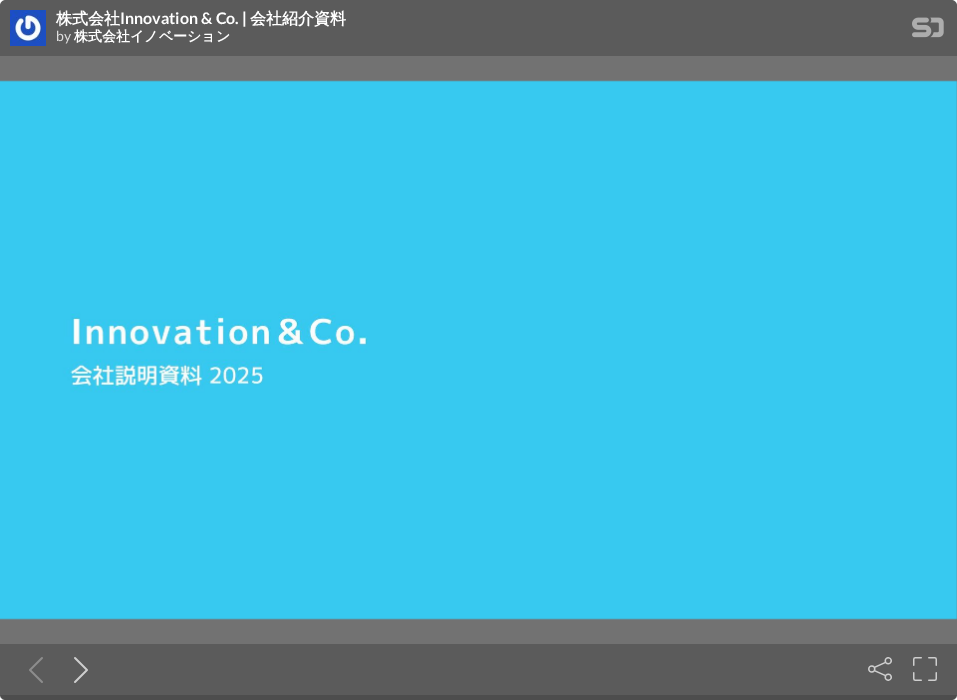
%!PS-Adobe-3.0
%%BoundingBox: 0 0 957 700
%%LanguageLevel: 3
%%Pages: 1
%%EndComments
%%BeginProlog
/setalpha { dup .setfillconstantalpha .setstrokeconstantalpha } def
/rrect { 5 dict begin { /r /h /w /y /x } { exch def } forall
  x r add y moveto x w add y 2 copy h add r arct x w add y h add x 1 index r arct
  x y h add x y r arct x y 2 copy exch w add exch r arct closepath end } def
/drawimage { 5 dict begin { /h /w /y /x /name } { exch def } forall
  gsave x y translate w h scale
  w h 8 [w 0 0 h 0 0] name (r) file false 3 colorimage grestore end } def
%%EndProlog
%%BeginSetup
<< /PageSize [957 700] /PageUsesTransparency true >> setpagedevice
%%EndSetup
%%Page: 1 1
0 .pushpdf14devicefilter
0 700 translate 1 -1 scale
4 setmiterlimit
1 setgray
0 0 957 700 rectfill
0.447 setgray
0 0 957 700 6 rrect fill
(images/1.raw) 0 80 957 540 drawimage
0.2 setalpha
0 setgray
newpath 6 0 moveto 951 0 lineto 954.5 0 957 2.5 957 6 curveto 957 56 lineto 0 56 lineto 0 6 lineto 0 2.5 2.5 0 6 0 curveto closepath fill
1 setalpha
(images/2.raw) 10 10 36 36 drawimage
(images/3.raw) 912 17 32 21 drawimage
0.2 setalpha
newpath 0 644 moveto 957 644 lineto 957 694 lineto 957 697.5 954.5 700 951 700 curveto 6 700 lineto 2.5 700 0 697.5 0 694 curveto closepath fill
1 setalpha
(images/4.raw) 29 657 14 26 drawimage
(images/5.raw) 74 657 14 26 drawimage
(images/6.raw) 868 657 24 24 drawimage
(images/7.raw) 913 657 24 24 drawimage
gsave
0 0 957 700 6 rrect clip newpath
0.15 setalpha
0 695 957 5 rectfill
grestore
/WenQuanYiZenHei-Bold [16 0 0 -16 0 0] selectfont
1 setgray
56 24 moveto (株式会社) show
/Lato-Bold [16 0 0 -16 0 0] selectfont
120 24 moveto (Innovation & Co. |) show
/WenQuanYiZenHei-Bold [16 0 0 -16 0 0] selectfont
250 24 moveto (会社紹介資料) show
/Lato-Regular [14 0 0 -14 0 0] selectfont
0.871 setgray
56 41 moveto (by) show
/WenQuanYiZenHei-Bold [14 0 0 -14 0 0] selectfont
1 setgray
74 41 moveto (株式会社イノベーション) show
.poppdf14devicefilter showpage
%%EOF
